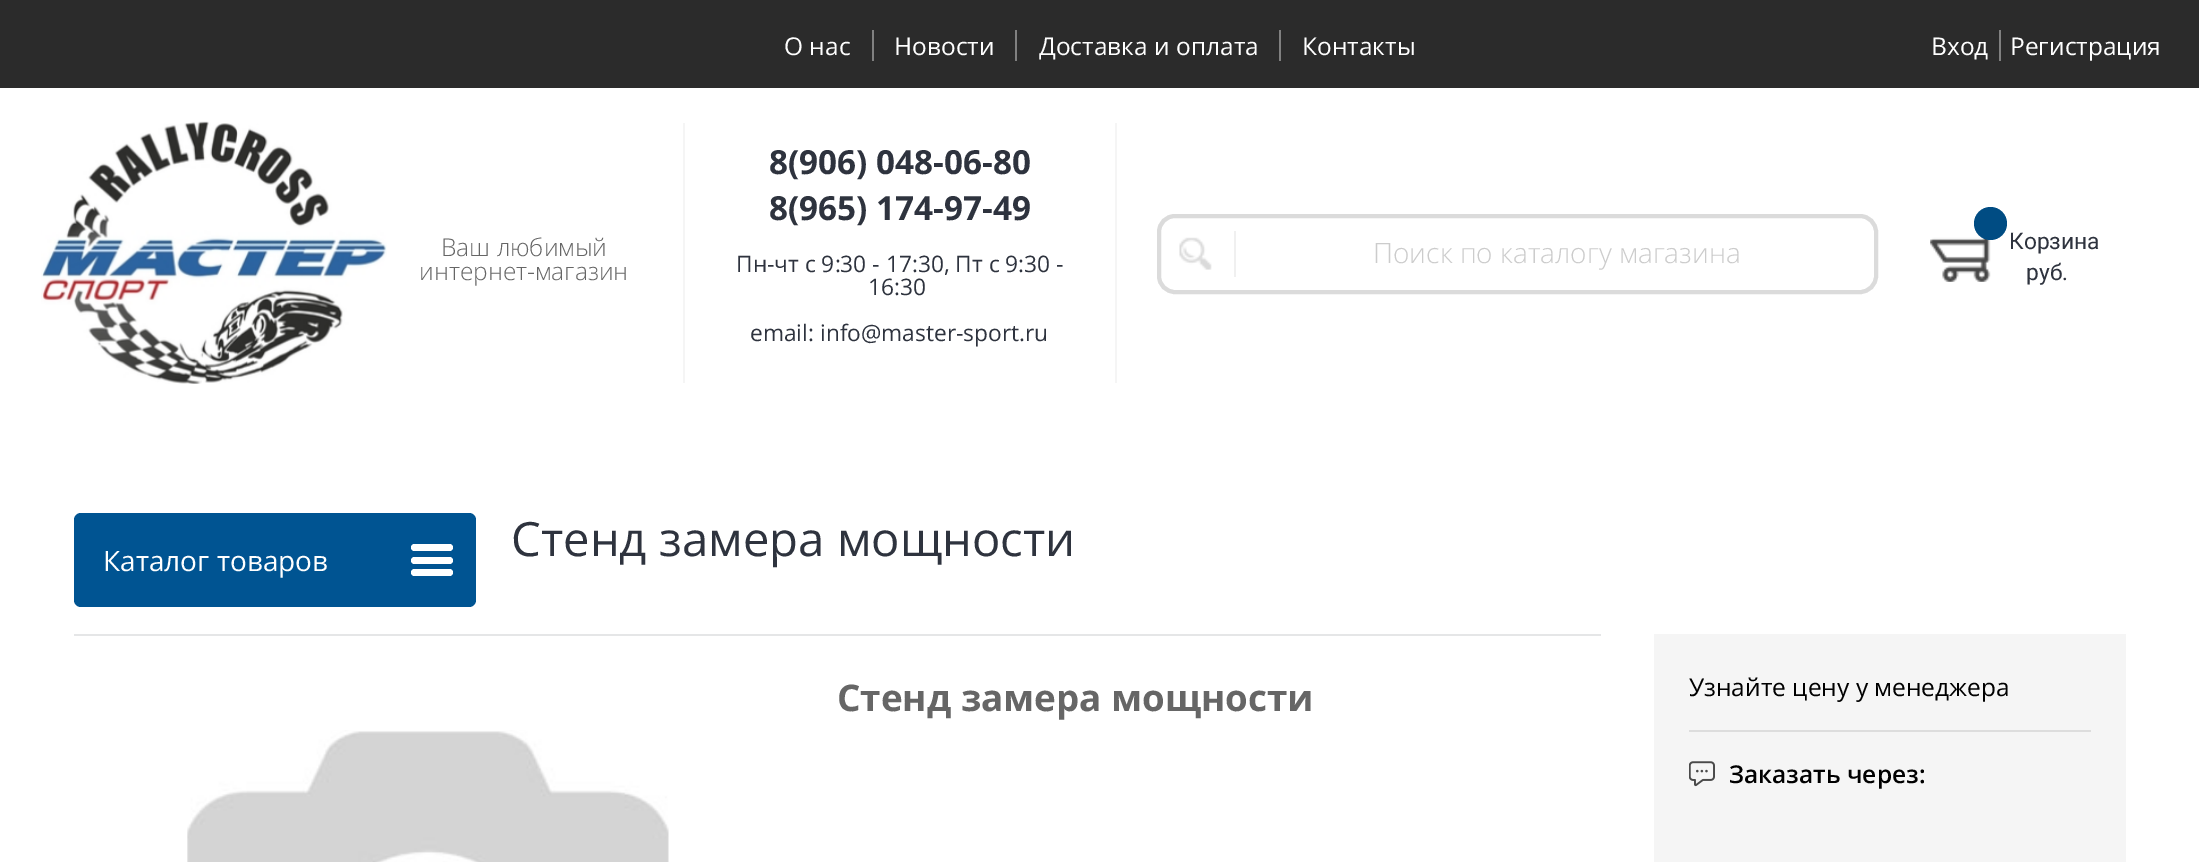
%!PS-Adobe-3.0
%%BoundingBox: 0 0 2199 862
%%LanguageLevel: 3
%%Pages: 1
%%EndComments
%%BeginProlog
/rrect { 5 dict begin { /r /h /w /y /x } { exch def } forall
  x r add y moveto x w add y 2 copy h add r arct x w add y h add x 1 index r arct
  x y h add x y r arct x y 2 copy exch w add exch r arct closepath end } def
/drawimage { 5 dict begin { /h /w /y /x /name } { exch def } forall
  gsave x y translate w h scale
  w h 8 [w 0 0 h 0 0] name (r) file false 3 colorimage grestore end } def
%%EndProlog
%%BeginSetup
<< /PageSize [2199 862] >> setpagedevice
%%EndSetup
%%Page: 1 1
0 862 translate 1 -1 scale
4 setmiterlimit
1 setgray
0 0 2199 862 rectfill
0.169 setgray
0 0 2199 88 rectfill
0.502 setgray
872 30 2 31 rectfill
1015 30 2 31 rectfill
1279 30 2 31 rectfill
1999 30 2 31 rectfill
(images/1.raw) 41 121 346 263 drawimage
0.961 setgray
683 123 2 260 rectfill
1115 123 2 260 rectfill
0.859 setgray
4 setlinewidth
1159 216 717 76 16 rrect stroke
(images/2.raw) 1179 237 33 33 drawimage
0.941 setgray
1234 231 2 46 rectfill
(images/3.raw) 1930 237 61 45 drawimage
0 0.298 0.514 setrgbcolor
newpath 1990.5 223.5 16.5 0 360 arc closepath fill
0 0.329 0.573 setrgbcolor
74 513 402 94 7 rrect fill
1 setgray
411 557 42 7 3.5 rrect fill
411 544 42 7 3.5 rrect fill
411 569 42 7 3.5 rrect fill
0.898 0.902 0.906 setrgbcolor
74 634 1527 2 rectfill
(images/4.raw) 187 730 482 132 drawimage
0.961 setgray
1654 634 472 228 rectfill
0.867 setgray
1689 730 402 2 rectfill
(images/5.raw) 1689 761 26 26 drawimage
/OpenSans-Regular [24.5 0 0 -24.5 0 0] selectfont
1 setgray
784 55 moveto (О нас) show
894 55 moveto (Новости) show
1039 55 moveto (Доставка и оплата) show
1302 55 moveto (Контакты) show
1931 55 moveto (Вход) show
2010 55 moveto (Регистрация) show
/OpenSans-Light [24.5 0 0 -24.5 0 0] selectfont
0.4 setgray
441 256 moveto (Ваш любимый) show
419 280 moveto (интернет-магазин) show
/OpenSans-Bold [33.25 0 0 -33.25 0 0] selectfont
0.18 0.2 0.243 setrgbcolor
769 174 moveto (8\(906\) 048-06-80) show
769 220 moveto (8\(965\) 174-97-49) show
/OpenSans-Regular [22.75 0 0 -22.75 0 0] selectfont
736 272 moveto (Пн-чт с 9:30 - 17:30, Пт с 9:30 -) show
868 295 moveto (16:30) show
750 341 moveto (email: info@master-sport.ru) show
/OpenSans-Light [28 0 0 -28 0 0] selectfont
0.8 setgray
1373 263 moveto (Поиск по каталогу магазина) show
/Roboto-Regular [22.75 0 0 -22.75 0 0] selectfont
0.18 0.2 0.243 setrgbcolor
2009 249 moveto (Корзина) show
2026 280 moveto (руб.) show
/OpenSans-Regular [28 0 0 -28 0 0] selectfont
1 setgray
103 571 moveto (Каталог товаров) show
/OpenSans-Regular [47.25 0 0 -47.25 0 0] selectfont
0.18 0.2 0.243 setrgbcolor
511 556 moveto (Стенд замера мощности) show
/OpenSans-Bold [36.75 0 0 -36.75 0 0] selectfont
0.4 setgray
837 711 moveto (Стенд замера мощности) show
/OpenSans-Regular [24.5 0 0 -24.5 0 0] selectfont
0 setgray
1689 696 moveto (Узнайте цену у менеджера) show
/OpenSans-SemiBold [24.5 0 0 -24.5 0 0] selectfont
1729 783 moveto (Заказать через:) show
showpage
%%EOF
